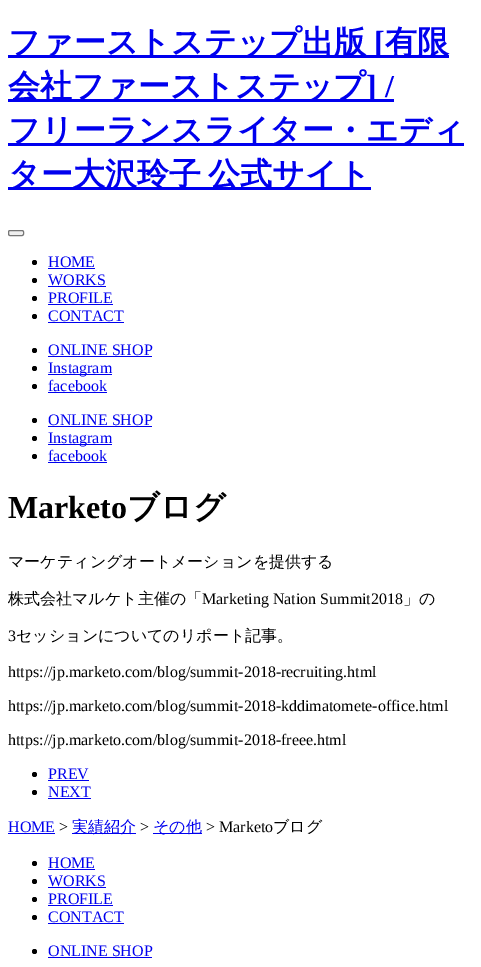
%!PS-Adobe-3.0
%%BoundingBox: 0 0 481 967
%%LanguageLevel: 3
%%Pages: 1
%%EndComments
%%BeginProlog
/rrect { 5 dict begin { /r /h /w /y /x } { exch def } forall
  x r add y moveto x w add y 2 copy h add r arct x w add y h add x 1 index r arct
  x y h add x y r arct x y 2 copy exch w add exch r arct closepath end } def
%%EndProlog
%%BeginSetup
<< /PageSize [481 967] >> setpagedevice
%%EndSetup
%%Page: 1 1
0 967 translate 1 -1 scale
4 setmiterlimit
1 setgray
0 0 481 967 rectfill
0 0 0.933 setrgbcolor
8 55 441 3 rectfill
8 99 386 3 rectfill
8 143 456 3 rectfill
8 187 363 3 rectfill
0.937 setgray
8.5 230.5 15 5 1.5 rrect gsave fill grestore
0.463 setgray
stroke
0 setgray
newpath 34.5 262.5 2.5 0 360 arc closepath fill
0 0 0.933 setrgbcolor
48 268 47 1 rectfill
0 setgray
newpath 34.5 280.5 2.5 0 360 arc closepath fill
0 0 0.933 setrgbcolor
48 286 58 1 rectfill
0 setgray
newpath 34.5 298.5 2.5 0 360 arc closepath fill
0 0 0.933 setrgbcolor
48 304 65 1 rectfill
0 setgray
newpath 34.5 316.5 2.5 0 360 arc closepath fill
0 0 0.933 setrgbcolor
48 322 76 1 rectfill
0 setgray
newpath 34.5 350.5 2.5 0 360 arc closepath fill
0 0 0.933 setrgbcolor
48 356 104 1 rectfill
0 setgray
newpath 34.5 368.5 2.5 0 360 arc closepath fill
0 0 0.933 setrgbcolor
48 374 64 1 rectfill
0 setgray
newpath 34.5 386.5 2.5 0 360 arc closepath fill
0 0 0.933 setrgbcolor
48 392 59 1 rectfill
0 setgray
newpath 34.5 420.5 2.5 0 360 arc closepath fill
0 0 0.933 setrgbcolor
48 426 104 1 rectfill
0 setgray
newpath 34.5 438.5 2.5 0 360 arc closepath fill
0 0 0.933 setrgbcolor
48 444 64 1 rectfill
0 setgray
newpath 34.5 456.5 2.5 0 360 arc closepath fill
0 0 0.933 setrgbcolor
48 462 59 1 rectfill
0 setgray
newpath 34.5 774.5 2.5 0 360 arc closepath fill
0 0 0.933 setrgbcolor
48 780 41 1 rectfill
0 setgray
newpath 34.5 792.5 2.5 0 360 arc closepath fill
0 0 0.933 setrgbcolor
48 798 43 1 rectfill
8 833 47 1 rectfill
72 833 64 1 rectfill
153 833 49 1 rectfill
0 setgray
newpath 34.5 863.5 2.5 0 360 arc closepath fill
0 0 0.933 setrgbcolor
48 869 47 1 rectfill
0 setgray
newpath 34.5 881.5 2.5 0 360 arc closepath fill
0 0 0.933 setrgbcolor
48 887 58 1 rectfill
0 setgray
newpath 34.5 899.5 2.5 0 360 arc closepath fill
0 0 0.933 setrgbcolor
48 905 65 1 rectfill
0 setgray
newpath 34.5 917.5 2.5 0 360 arc closepath fill
0 0 0.933 setrgbcolor
48 923 76 1 rectfill
0 setgray
newpath 34.5 951.5 2.5 0 360 arc closepath fill
0 0 0.933 setrgbcolor
48 957 104 1 rectfill
/WenQuanYiZenHei-Bold [32 0 0 -32 0 0] selectfont
8 53 moveto (ファーストステップ出版) show
/LiberationSerif-Bold [32 0 0 -32 0 0] selectfont
374 53 moveto ([) show
/WenQuanYiZenHei-Bold [32 0 0 -32 0 0] selectfont
385 53 moveto (有限) show
8 97 moveto (会社ファーストステップ) show
/LiberationSerif-Bold [32 0 0 -32 0 0] selectfont
366 97 moveto (] /) show
/WenQuanYiZenHei-Bold [32 0 0 -32 0 0] selectfont
8 141 moveto (フリーランスライター・エディ) show
8 185 moveto -2 0 32 (ター大沢玲子 公式サイト) widthshow
/LiberationSerif-Regular [16 0 0 -16 0 0] selectfont
48 267 moveto (HOME) show
48 285 moveto (WORKS) show
48 303 moveto (PROFILE) show
48 321 moveto (CONTACT) show
48 355 moveto (ONLINE SHOP) show
48 373 moveto (Instagram) show
48 391 moveto (facebook) show
48 425 moveto (ONLINE SHOP) show
48 443 moveto (Instagram) show
48 461 moveto (facebook) show
/LiberationSerif-Bold [32 0 0 -32 0 0] selectfont
0 setgray
8 518 moveto (Marketo) show
/WenQuanYiZenHei-Bold [32 0 0 -32 0 0] selectfont
127 518 moveto (ブログ) show
/WenQuanYiZenHei-Medium [16 0 0 -16 0 0] selectfont
8 567 moveto (マーケティングオートメーションを提供する) show
8 604 moveto (株式会社マルケト主催の「) show
/LiberationSerif-Regular [16 0 0 -16 0 0] selectfont
202 604 moveto (Marketing Nation Summit2018) show
/WenQuanYiZenHei-Medium [16 0 0 -16 0 0] selectfont
403 604 moveto (」の) show
/LiberationSerif-Regular [16 0 0 -16 0 0] selectfont
8 641 moveto (3) show
/WenQuanYiZenHei-Medium [16 0 0 -16 0 0] selectfont
16 641 moveto (セッションについてのリポート記事。) show
/LiberationSerif-Regular [16 0 0 -16 0 0] selectfont
8 677 moveto (https://jp.marketo.com/blog/summit-2018-recruiting.html) show
8 711 moveto (https://jp.marketo.com/blog/summit-2018-kddimatomete-office.html) show
8 745 moveto (https://jp.marketo.com/blog/summit-2018-freee.html) show
0 0 0.933 setrgbcolor
48 779 moveto (PREV) show
48 797 moveto (NEXT) show
8 832 moveto (HOME) show
0 setgray
59 832 moveto (>) show
/WenQuanYiZenHei-Medium [16 0 0 -16 0 0] selectfont
0 0 0.933 setrgbcolor
72 832 moveto (実績紹介) show
/LiberationSerif-Regular [16 0 0 -16 0 0] selectfont
0 setgray
140 832 moveto (>) show
/WenQuanYiZenHei-Medium [16 0 0 -16 0 0] selectfont
0 0 0.933 setrgbcolor
153 832 moveto (その他) show
/LiberationSerif-Regular [16 0 0 -16 0 0] selectfont
0 setgray
206 832 moveto (> Marketo) show
/WenQuanYiZenHei-Medium [16 0 0 -16 0 0] selectfont
273 832 moveto (ブログ) show
/LiberationSerif-Regular [16 0 0 -16 0 0] selectfont
0 0 0.933 setrgbcolor
48 868 moveto (HOME) show
48 886 moveto (WORKS) show
48 904 moveto (PROFILE) show
48 922 moveto (CONTACT) show
48 956 moveto (ONLINE SHOP) show
showpage
%%EOF
